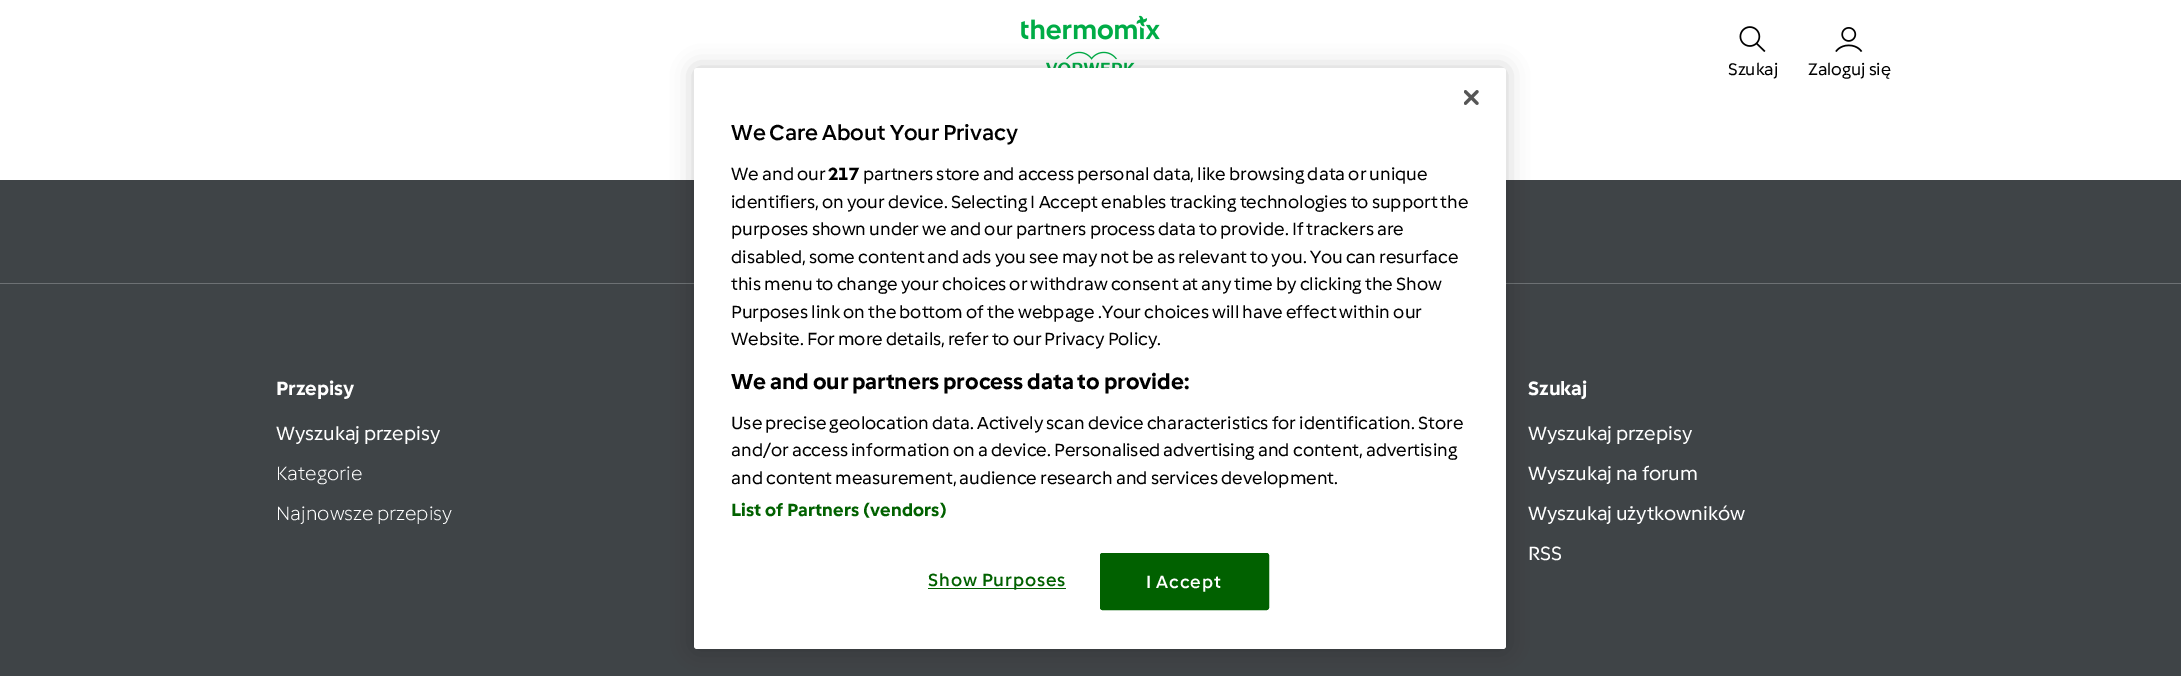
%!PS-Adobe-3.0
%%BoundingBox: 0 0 2181 676
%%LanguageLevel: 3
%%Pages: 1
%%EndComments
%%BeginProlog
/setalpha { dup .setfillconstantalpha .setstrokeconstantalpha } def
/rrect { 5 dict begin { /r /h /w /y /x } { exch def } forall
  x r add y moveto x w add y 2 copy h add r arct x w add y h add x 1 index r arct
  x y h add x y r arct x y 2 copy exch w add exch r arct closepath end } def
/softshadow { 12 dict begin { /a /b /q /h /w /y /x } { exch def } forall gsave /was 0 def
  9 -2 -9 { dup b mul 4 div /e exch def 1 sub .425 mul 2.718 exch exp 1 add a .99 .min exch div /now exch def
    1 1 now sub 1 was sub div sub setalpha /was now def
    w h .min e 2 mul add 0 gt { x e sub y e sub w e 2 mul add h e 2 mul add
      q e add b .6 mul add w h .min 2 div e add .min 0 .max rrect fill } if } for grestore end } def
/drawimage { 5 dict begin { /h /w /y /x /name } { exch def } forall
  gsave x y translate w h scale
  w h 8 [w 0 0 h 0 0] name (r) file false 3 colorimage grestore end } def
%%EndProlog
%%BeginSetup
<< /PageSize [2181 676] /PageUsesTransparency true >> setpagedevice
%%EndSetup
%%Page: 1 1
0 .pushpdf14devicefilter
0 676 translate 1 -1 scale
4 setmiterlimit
0.247 0.267 0.278 setrgbcolor
0 0 2181 676 rectfill
1 setgray
0 0 2181 180 rectfill
(images/1.raw) 1021 15 139 53 drawimage
(images/2.raw) 1739 26 27 26 drawimage
(images/3.raw) 1835 27 28 25 drawimage
0.427 0.443 0.455 setrgbcolor
0 283 2181 1 rectfill
0 setgray
694 68 812 581 3 11 0.2 softshadow
1 setgray
694 68 812 581 3 rrect fill
(images/4.raw) 1464 90 15 15 drawimage
0.004 0.38 0 setrgbcolor
928 588 138 1 rectfill
1100.5 553.5 168 56 2 rrect gsave fill grestore
stroke
/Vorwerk-Regular [17.5 0 0 -17.5 0 0] selectfont
0 setgray
1728 75 moveto (Szukaj) show
1808 75 moveto (Zaloguj się) show
/Vorwerk-Bold [20 0 0 -20 0 0] selectfont
1 setgray
276 395 moveto (Przepisy) show
/Vorwerk-Regular [20 0 0 -20 0 0] selectfont
276 440 moveto (Wyszukaj przepisy) show
/Vorwerk-Light [20 0 0 -20 0 0] selectfont
276 480 moveto (Kategorie) show
276 520 moveto (Najnowsze przepisy) show
/Vorwerk-Bold [20 0 0 -20 0 0] selectfont
1528 395 moveto (Szukaj) show
/Vorwerk-Regular [20 0 0 -20 0 0] selectfont
1528 440 moveto (Wyszukaj przepisy) show
1528 480 moveto (Wyszukaj na forum) show
1528 520 moveto (Wyszukaj użytkowników) show
1528 560 moveto (RSS) show
/Vorwerk-Medium [22.5 0 0 -22.5 0 0] selectfont
0 setgray
731 140 moveto (We Care About Your Privacy) show
/Vorwerk-Regular [18.3 0 0 -18.3 0 0] selectfont
731 180 moveto (We and our) show
/Vorwerk-Bold [18.3 0 0 -18.3 0 0] selectfont
828 180 moveto (217) show
/Vorwerk-Regular [18.3 0 0 -18.3 0 0] selectfont
863 180 moveto (partners store and access personal data, like browsing data or unique) show
731 208 moveto (identifiers, on your device. Selecting I Accept enables tracking technologies to support the) show
731 235 moveto (purposes shown under we and our partners process data to provide. If trackers are) show
731 263 moveto (disabled, some content and ads you see may not be as relevant to you. You can resurface) show
731 290 moveto (this menu to change your choices or withdraw consent at any time by clicking the Show) show
731 318 moveto (Purposes link on the bottom of the webpage .Your choices will have effect within our) show
731 345 moveto (Website. For more details, refer to our Privacy Policy.) show
/Vorwerk-Bold [22.5 0 0 -22.5 0 0] selectfont
731 389 moveto (We and our partners process data to provide:) show
/Vorwerk-Regular [18.3 0 0 -18.3 0 0] selectfont
731 429 moveto (Use precise geolocation data. Actively scan device characteristics for identification. Store) show
731 456 moveto (and/or access information on a device. Personalised advertising and content, advertising) show
731 484 moveto (and content measurement, audience research and services development.) show
/Vorwerk-Bold [18.3 0 0 -18.3 0 0] selectfont
0.004 0.38 0 setrgbcolor
731 516 moveto 0.2 0 (List of Partners \(vendors\)) ashow
/Vorwerk-Medium [18.3 0 0 -18.3 0 0] selectfont
928 586 moveto 0.9 0 (Show Purposes) ashow
1 setgray
1146 588 moveto 0.9 0 (I Accept) ashow
.poppdf14devicefilter showpage
%%EOF
